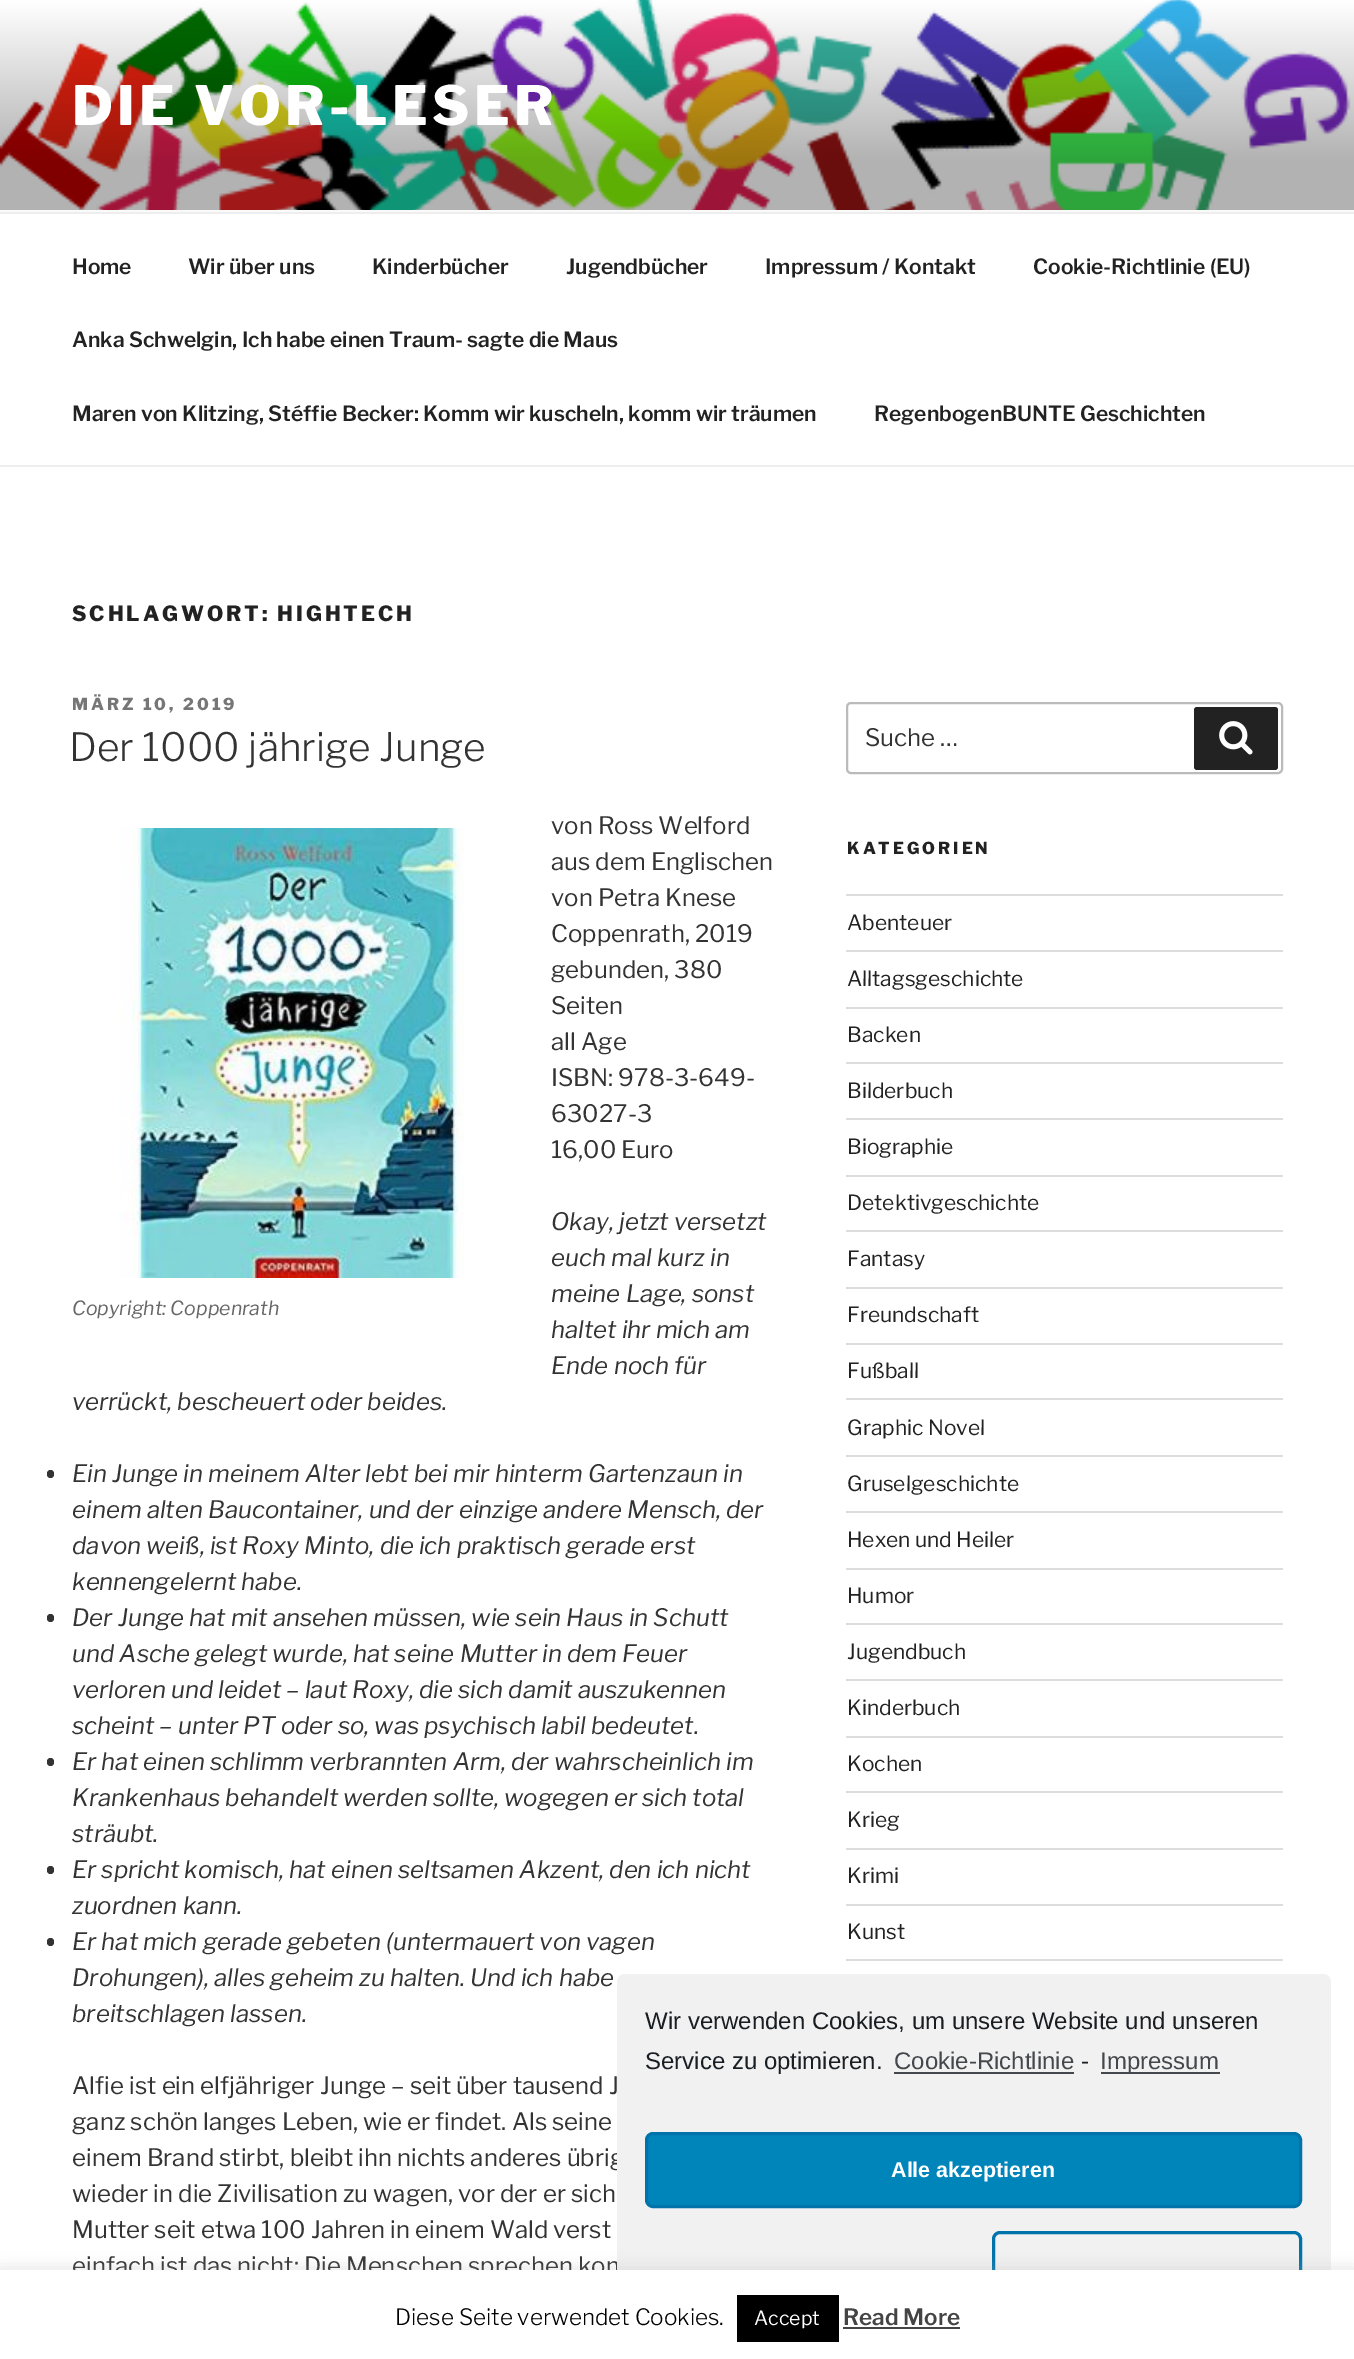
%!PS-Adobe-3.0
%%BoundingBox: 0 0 1354 2359
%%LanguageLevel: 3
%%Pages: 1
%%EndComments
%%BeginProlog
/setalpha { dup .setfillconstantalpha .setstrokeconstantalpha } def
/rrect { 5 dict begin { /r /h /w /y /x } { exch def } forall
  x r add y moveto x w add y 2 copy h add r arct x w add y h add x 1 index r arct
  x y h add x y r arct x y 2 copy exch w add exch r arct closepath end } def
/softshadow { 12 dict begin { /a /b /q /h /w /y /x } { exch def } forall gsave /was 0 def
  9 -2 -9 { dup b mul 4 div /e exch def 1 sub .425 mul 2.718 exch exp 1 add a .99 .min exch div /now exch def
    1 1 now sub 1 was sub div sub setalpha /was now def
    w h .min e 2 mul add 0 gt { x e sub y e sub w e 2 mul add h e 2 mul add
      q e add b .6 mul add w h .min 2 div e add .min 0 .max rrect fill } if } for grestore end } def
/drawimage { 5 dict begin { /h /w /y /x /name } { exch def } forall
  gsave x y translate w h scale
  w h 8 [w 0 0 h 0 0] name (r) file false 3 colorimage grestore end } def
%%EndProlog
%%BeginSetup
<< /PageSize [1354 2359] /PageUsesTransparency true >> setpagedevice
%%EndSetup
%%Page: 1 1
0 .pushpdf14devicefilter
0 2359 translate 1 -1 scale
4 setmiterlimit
1 setgray
0 0 1354 2359 rectfill
0.98 setgray
0 210 1354 2 rectfill
(images/1.raw) 0 0 1354 210 drawimage
0.933 setgray
0 212 1354 2 rectfill
0 465 1354 2 rectfill
(images/2.raw) 120 828 344 450 drawimage
0.2 setgray
47 1470 7 8 3.5 rrect fill
47 1614 7 8 3.5 rrect fill
47 1758 7 8 3.5 rrect fill
47 1866 7 8 3.5 rrect fill
47 1938 7 8 3.5 rrect fill
0.733 setgray
2 setlinewidth
847 703 435 70 4 rrect stroke
0.133 setgray
1194 707 84 63 3 rrect fill
(images/3.raw) 1219 721 34 34 drawimage
0.867 setgray
846 894 437 2 rectfill
846 950 437 2 rectfill
846 1007 437 2 rectfill
846 1062 437 2 rectfill
846 1118 437 2 rectfill
846 1175 437 2 rectfill
846 1230 437 2 rectfill
846 1287 437 2 rectfill
846 1343 437 2 rectfill
846 1398 437 2 rectfill
846 1455 437 2 rectfill
846 1511 437 2 rectfill
846 1568 437 2 rectfill
846 1623 437 2 rectfill
846 1679 437 2 rectfill
846 1736 437 2 rectfill
846 1791 437 2 rectfill
846 1848 437 2 rectfill
846 1904 437 2 rectfill
846 1959 437 2 rectfill
/LibreFranklin-ExtraBold [54 0 0 -54 0 0] selectfont
1 setgray
72 125 moveto 4.25 0 (DIE VOR-LESER) ashow
/LibreFranklin-SemiBold [21 0 0 -21 0 0] selectfont
0.133 setgray
72 274 moveto (Home) show
188 274 moveto (Wir über uns) show
372 274 moveto (Kinderbücher) show
566 274 moveto (Jugendbücher) show
765 274 moveto (Impressum / Kontakt) show
1033 274 moveto (Cookie-Richtlinie \(EU\)) show
72 347 moveto (Anka Schwelgin, Ich habe einen Traum- sagte die Maus) show
72 421 moveto (Maren von Klitzing, Stéffie Becker: Komm wir kuscheln, komm wir träumen) show
874 421 moveto (RegenbogenBUNTE Geschichten) show
/LibreFranklin-ExtraBold [21 0 0 -21 0 0] selectfont
72 621 moveto 2.9 0 (SCHLAGWORT: HIGHTECH) ashow
/LibreFranklin-ExtraBold [16.5 0 0 -16.5 0 0] selectfont
0.463 setgray
72 710 moveto 3 0 (MÄRZ 10, 2019) ashow
/LibreFranklin-Light [39 0 0 -39 0 0] selectfont
0.2 setgray
69 761 moveto (Der 1000 jährige Junge) show
/LibreFranklin-Regular [24 0 0 -24 0 0] selectfont
551 834 moveto (von Ross Welford) show
551 870 moveto (aus dem Englischen) show
551 906 moveto (von Petra Knese) show
551 942 moveto (Coppenrath, 2019) show
551 978 moveto (gebunden, 380) show
551 1014 moveto (Seiten) show
551 1050 moveto (all Age) show
551 1086 moveto (ISBN: 978-3-649-) show
551 1122 moveto (63027-3) show
551 1158 moveto (16,00 Euro) show
/LibreFranklin-Italic [24 0 0 -24 0 0] selectfont
551 1230 moveto (Okay, jetzt versetzt) show
551 1266 moveto (euch mal kurz in) show
551 1302 moveto (meine Lage, sonst) show
551 1338 moveto (haltet ihr mich am) show
551 1374 moveto (Ende noch für) show
72 1410 moveto (verrückt, bescheuert oder beides.) show
/LibreFranklin-Italic [19.5 0 0 -19.5 0 0] selectfont
0.4 setgray
72 1315 moveto (Copyright: Coppenrath) show
/LibreFranklin-Italic [24 0 0 -24 0 0] selectfont
0.2 setgray
72 1482 moveto (Ein Junge in meinem Alter lebt bei mir hinterm Gartenzaun in) show
72 1518 moveto (einem alten Baucontainer, und der einzige andere Mensch, der) show
72 1554 moveto (davon weiß, ist Roxy Minto, die ich praktisch gerade erst) show
72 1590 moveto (kennengelernt habe.) show
72 1626 moveto (Der Junge hat mit ansehen müssen, wie sein Haus in Schutt) show
72 1662 moveto (und Asche gelegt wurde, hat seine Mutter in dem Feuer) show
72 1698 moveto (verloren und leidet – laut Roxy, die sich damit auszukennen) show
72 1734 moveto (scheint – unter PT oder so, was psychisch labil bedeutet.) show
72 1770 moveto (Er hat einen schlimm verbrannten Arm, der wahrscheinlich im) show
72 1806 moveto (Krankenhaus behandelt werden sollte, wogegen er sich total) show
72 1842 moveto (sträubt.) show
72 1878 moveto (Er spricht komisch, hat einen seltsamen Akzent, den ich nicht) show
72 1914 moveto (zuordnen kann.) show
72 1950 moveto (Er hat mich gerade gebeten \(untermauert von vagen) show
72 1986 moveto (Drohungen\), alles geheim zu halten. Und ich habe) show
72 2022 moveto (breitschlagen lassen.) show
/LibreFranklin-Regular [24 0 0 -24 0 0] selectfont
72 2094 moveto (Alfie ist ein elfjähriger Junge – seit über tausend J) show
72 2130 moveto (ganz schön langes Leben, wie er findet. Als seine) show
72 2166 moveto (einem Brand stirbt, bleibt ihn nichts anderes übrig) show
72 2202 moveto (wieder in die Zivilisation zu wagen, vor der er sich) show
72 2238 moveto (Mutter seit etwa 100 Jahren in einem Wald verst) show
72 2274 moveto (einfach ist das nicht: Die Menschen sprechen kom) show
865 746 moveto (Suche …) show
/LibreFranklin-ExtraBold [16.5 0 0 -16.5 0 0] selectfont
0.133 setgray
847 854 moveto 3 0 (KATEGORIEN) ashow
/LibreFranklin-Regular [21 0 0 -21 0 0] selectfont
847 930 moveto (Abenteuer) show
847 986 moveto (Alltagsgeschichte) show
847 1042 moveto (Backen) show
847 1098 moveto (Bilderbuch) show
847 1154 moveto (Biographie) show
847 1210 moveto (Detektivgeschichte) show
847 1266 moveto (Fantasy) show
847 1322 moveto (Freundschaft) show
847 1378 moveto (Fußball) show
847 1435 moveto (Graphic Novel) show
847 1491 moveto (Gruselgeschichte) show
847 1547 moveto (Hexen und Heiler) show
847 1603 moveto (Humor) show
847 1659 moveto (Jugendbuch) show
847 1715 moveto (Kinderbuch) show
847 1771 moveto (Kochen) show
847 1827 moveto (Krieg) show
847 1883 moveto (Krimi) show
847 1939 moveto (Kunst) show
0.945 setgray
617 1974 714 362 8 rrect fill
/LiberationSans-Regular [24 0 0 -24 0 0] selectfont
0.098 0.118 0.137 setrgbcolor
645 2029 moveto (Wir verwenden Cookies, um unsere Website und unseren) show
645 2069 moveto (Service zu optimieren.) show
0.267 0.282 0.298 setrgbcolor
894 2069 moveto (Cookie-Richtlinie) show
894 2072 180 2 rectfill
0.098 0.118 0.137 setrgbcolor
1081 2069 moveto (-) show
0.267 0.282 0.298 setrgbcolor
1101 2072 119 2 rectfill
1100 2069 moveto (Impressum) show
0 0.522 0.729 setrgbcolor
646.5 2133.5 654 73 6.5 rrect gsave fill grestore
0 0.451 0.667 setrgbcolor
3 setlinewidth
stroke
/LiberationSans-Bold [21.5 0 0 -21.5 0 0] selectfont
1 setgray
891 2177 moveto (Alle akzeptieren) show
0 0.451 0.667 setrgbcolor
993.5 2232.5 307 73 6.5 rrect stroke
0.675 0.671 0.671 setrgbcolor
0 2268 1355 90 0 7.5 0.3 softshadow
1 setgray
0 2270 1354 89 rectfill
/LibreFranklin-Light [22.5 0 0 -22.5 0 0] selectfont
0 setgray
395 2325 moveto (Diese Seite verwendet Cookies.) show
737 2295 102 47 rectfill
/LibreFranklin-Regular [19.5 0 0 -19.5 0 0] selectfont
1 setgray
754 2325 moveto (Accept) show
/LibreFranklin-SemiBold [22.5 0 0 -22.5 0 0] selectfont
0.267 setgray
843 2325 moveto (Read More) show
843 2327 117 2 rectfill
.poppdf14devicefilter showpage
%%EOF
